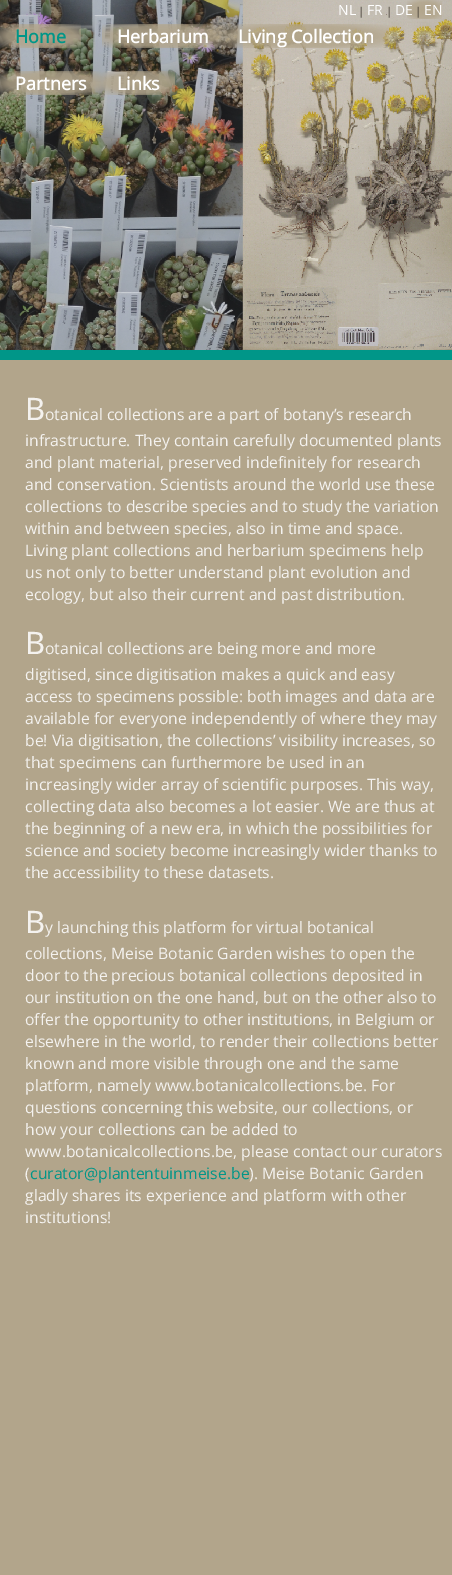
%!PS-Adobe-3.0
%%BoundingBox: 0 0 452 1575
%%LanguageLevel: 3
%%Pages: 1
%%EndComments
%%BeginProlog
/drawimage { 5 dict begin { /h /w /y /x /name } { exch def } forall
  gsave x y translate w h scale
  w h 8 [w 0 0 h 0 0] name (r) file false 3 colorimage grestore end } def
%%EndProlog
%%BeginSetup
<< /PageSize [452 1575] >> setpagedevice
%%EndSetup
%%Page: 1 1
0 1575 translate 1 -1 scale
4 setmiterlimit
0.698 0.647 0.545 setrgbcolor
0 0 452 1575 rectfill
(images/1.raw) 0 0 452 350 drawimage
0 0.588 0.533 setrgbcolor
0 350 452 10 rectfill
/OpenSans-Regular [14 0 0 -14 0 0] selectfont
1 setgray
338 15 moveto (NL) show
/OpenSans-Regular [11 0 0 -11 0 0] selectfont
0.251 0.224 0.196 setrgbcolor
358 15 moveto (|) show
/OpenSans-Regular [14 0 0 -14 0 0] selectfont
1 setgray
367 15 moveto (FR) show
/OpenSans-Regular [11 0 0 -11 0 0] selectfont
0.251 0.224 0.196 setrgbcolor
386 15 moveto (|) show
/OpenSans-Regular [14 0 0 -14 0 0] selectfont
1 setgray
395 15 moveto (DE) show
/OpenSans-Regular [11 0 0 -11 0 0] selectfont
0.251 0.224 0.196 setrgbcolor
415 15 moveto (|) show
/OpenSans-Regular [14 0 0 -14 0 0] selectfont
1 setgray
424 15 moveto (EN) show
/OpenSans-Bold [18 0 0 -18 0 0] selectfont
0 0.588 0.533 setrgbcolor
15 43 moveto (Home) show
1 setgray
117 43 moveto (Herbarium) show
238 43 moveto (Living Collection) show
15 90 moveto (Partners) show
117 90 moveto (Links) show
/NotoSans-Regular [31 0 0 -31 0 0] selectfont
0.957 0.949 0.937 setrgbcolor
25 420 moveto (B) show
/OpenSans-Regular [15.75 0 0 -15.75 0 0] selectfont
45 420 moveto (otanical collections are a part of botany’s research) show
25 446 moveto (infrastructure. They contain carefully documented plants) show
25 468 moveto (and plant material, preserved indefinitely for research) show
25 490 moveto (and conservation. Scientists around the world use these) show
25 512 moveto (collections to describe species and to study the variation) show
25 534 moveto (within and between species, also in time and space.) show
25 556 moveto (Living plant collections and herbarium specimens help) show
25 578 moveto (us not only to better understand plant evolution and) show
25 600 moveto (ecology, but also their current and past distribution.) show
/NotoSans-Regular [31 0 0 -31 0 0] selectfont
25 654 moveto (B) show
/OpenSans-Regular [15.75 0 0 -15.75 0 0] selectfont
45 654 moveto (otanical collections are being more and more) show
25 680 moveto (digitised, since digitisation makes a quick and easy) show
25 702 moveto (access to specimens possible: both images and data are) show
25 724 moveto (available for everyone independently of where they may) show
25 746 moveto (be! Via digitisation, the collections’ visibility increases, so) show
25 768 moveto (that specimens can furthermore be used in an) show
25 790 moveto (increasingly wider array of scientific purposes. This way,) show
25 812 moveto (collecting data also becomes a lot easier. We are thus at) show
25 834 moveto (the beginning of a new era, in which the possibilities for) show
25 856 moveto (science and society become increasingly wider thanks to) show
25 878 moveto (the accessibility to these datasets.) show
/NotoSans-Regular [31 0 0 -31 0 0] selectfont
25 933 moveto (B) show
/OpenSans-Regular [15.75 0 0 -15.75 0 0] selectfont
45 933 moveto (y launching this platform for virtual botanical) show
25 959 moveto (collections, Meise Botanic Garden wishes to open the) show
25 981 moveto (door to the precious botanical collections deposited in) show
25 1003 moveto (our institution on the one hand, but on the other also to) show
25 1025 moveto (offer the opportunity to other institutions, in Belgium or) show
25 1047 moveto (elsewhere in the world, to render their collections better) show
25 1069 moveto (known and more visible through one and the same) show
25 1091 moveto (platform, namely www.botanicalcollections.be. For) show
25 1113 moveto (questions concerning this website, our collections, or) show
25 1135 moveto (how your collections can be added to) show
25 1157 moveto (www.botanicalcollections.be, please contact our curators) show
25 1179 moveto (\() show
0 0.588 0.533 setrgbcolor
30 1179 moveto (curator@plantentuinmeise.be) show
0.957 0.949 0.937 setrgbcolor
249 1179 moveto (\). Meise Botanic Garden) show
25 1201 moveto (gladly shares its experience and platform with other) show
25 1223 moveto (institutions!) show
showpage
%%EOF
